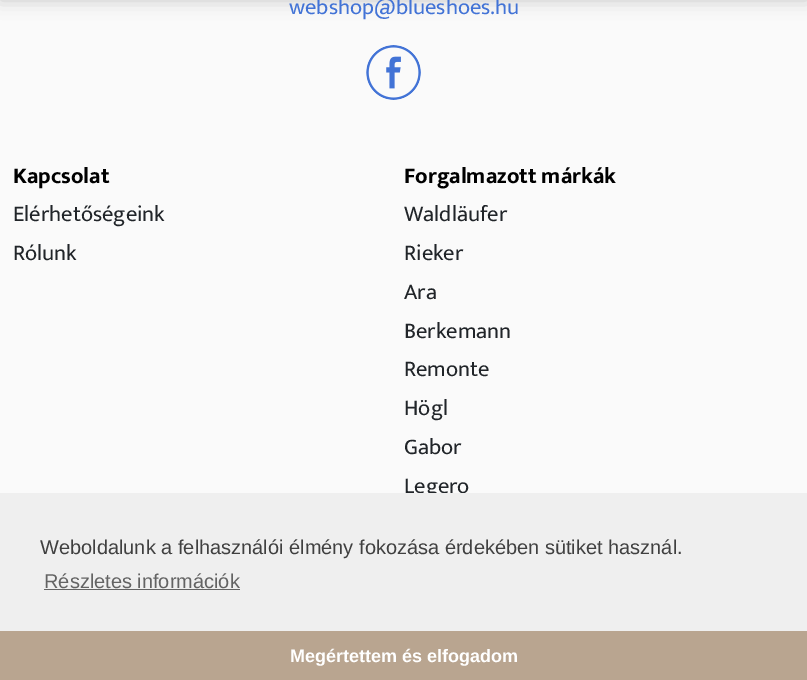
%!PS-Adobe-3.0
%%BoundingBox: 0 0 807 680
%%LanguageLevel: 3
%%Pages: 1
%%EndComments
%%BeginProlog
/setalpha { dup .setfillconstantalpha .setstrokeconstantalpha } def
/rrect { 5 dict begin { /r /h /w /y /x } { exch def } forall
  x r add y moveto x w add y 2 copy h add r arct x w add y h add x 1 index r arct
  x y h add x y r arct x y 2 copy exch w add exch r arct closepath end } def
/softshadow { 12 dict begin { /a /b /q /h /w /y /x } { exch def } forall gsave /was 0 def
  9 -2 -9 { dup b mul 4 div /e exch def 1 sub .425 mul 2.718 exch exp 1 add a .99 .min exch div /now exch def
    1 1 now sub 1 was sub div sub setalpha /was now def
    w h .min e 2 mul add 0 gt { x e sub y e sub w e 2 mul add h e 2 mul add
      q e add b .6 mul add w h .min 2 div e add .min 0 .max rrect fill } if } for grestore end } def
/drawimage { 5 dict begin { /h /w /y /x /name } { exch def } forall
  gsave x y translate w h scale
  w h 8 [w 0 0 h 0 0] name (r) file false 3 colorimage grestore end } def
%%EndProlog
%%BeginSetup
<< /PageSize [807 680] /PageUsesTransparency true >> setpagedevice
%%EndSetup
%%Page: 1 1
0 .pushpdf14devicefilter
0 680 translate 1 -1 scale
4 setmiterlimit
0.98 setgray
0 0 807 680 rectfill
0 setgray
0 -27 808 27 0 9 0.2 softshadow
(images/1.raw) 366 45 55 55 drawimage
0.725 0.647 0.565 setrgbcolor
0 631 807 49 rectfill
/MuktaVaani-Regular [22.5 0 0 -22.5 0 0] selectfont
0.259 0.451 0.839 setrgbcolor
289 14 moveto (webshop@blueshoes.hu) show
/MuktaVaani-Bold [22.5 0 0 -22.5 0 0] selectfont
0 setgray
13 183 moveto (Kapcsolat) show
/MuktaVaani-Regular [22.5 0 0 -22.5 0 0] selectfont
0.129 0.145 0.161 setrgbcolor
13 221 moveto (Elérhetőségeink) show
13 260 moveto (Rólunk) show
/MuktaVaani-Bold [22.5 0 0 -22.5 0 0] selectfont
0 setgray
404 183 moveto (Forgalmazott márkák) show
/MuktaVaani-Regular [22.5 0 0 -22.5 0 0] selectfont
0.129 0.145 0.161 setrgbcolor
404 221 moveto (Waldläufer) show
404 260 moveto (Rieker) show
404 299 moveto (Ara) show
404 338 moveto (Berkemann) show
404 376 moveto (Remonte) show
404 415 moveto (Högl) show
404 454 moveto (Gabor) show
404 493 moveto (Legero) show
0.937 setgray
0 493 807 138 rectfill
/LiberationSans-Regular [20 0 0 -20 0 0] selectfont
0.251 setgray
40 554 moveto (Weboldalunk a felhasználói élmény fokozása érdekében sütiket használ.) show
0.388 setgray
44 588 moveto (Részletes információk) show
44 589 196 1 rectfill
/LiberationSans-Bold [18 0 0 -18 0 0] selectfont
1 setgray
290 662 moveto (Megértettem és elfogadom) show
.poppdf14devicefilter showpage
%%EOF
